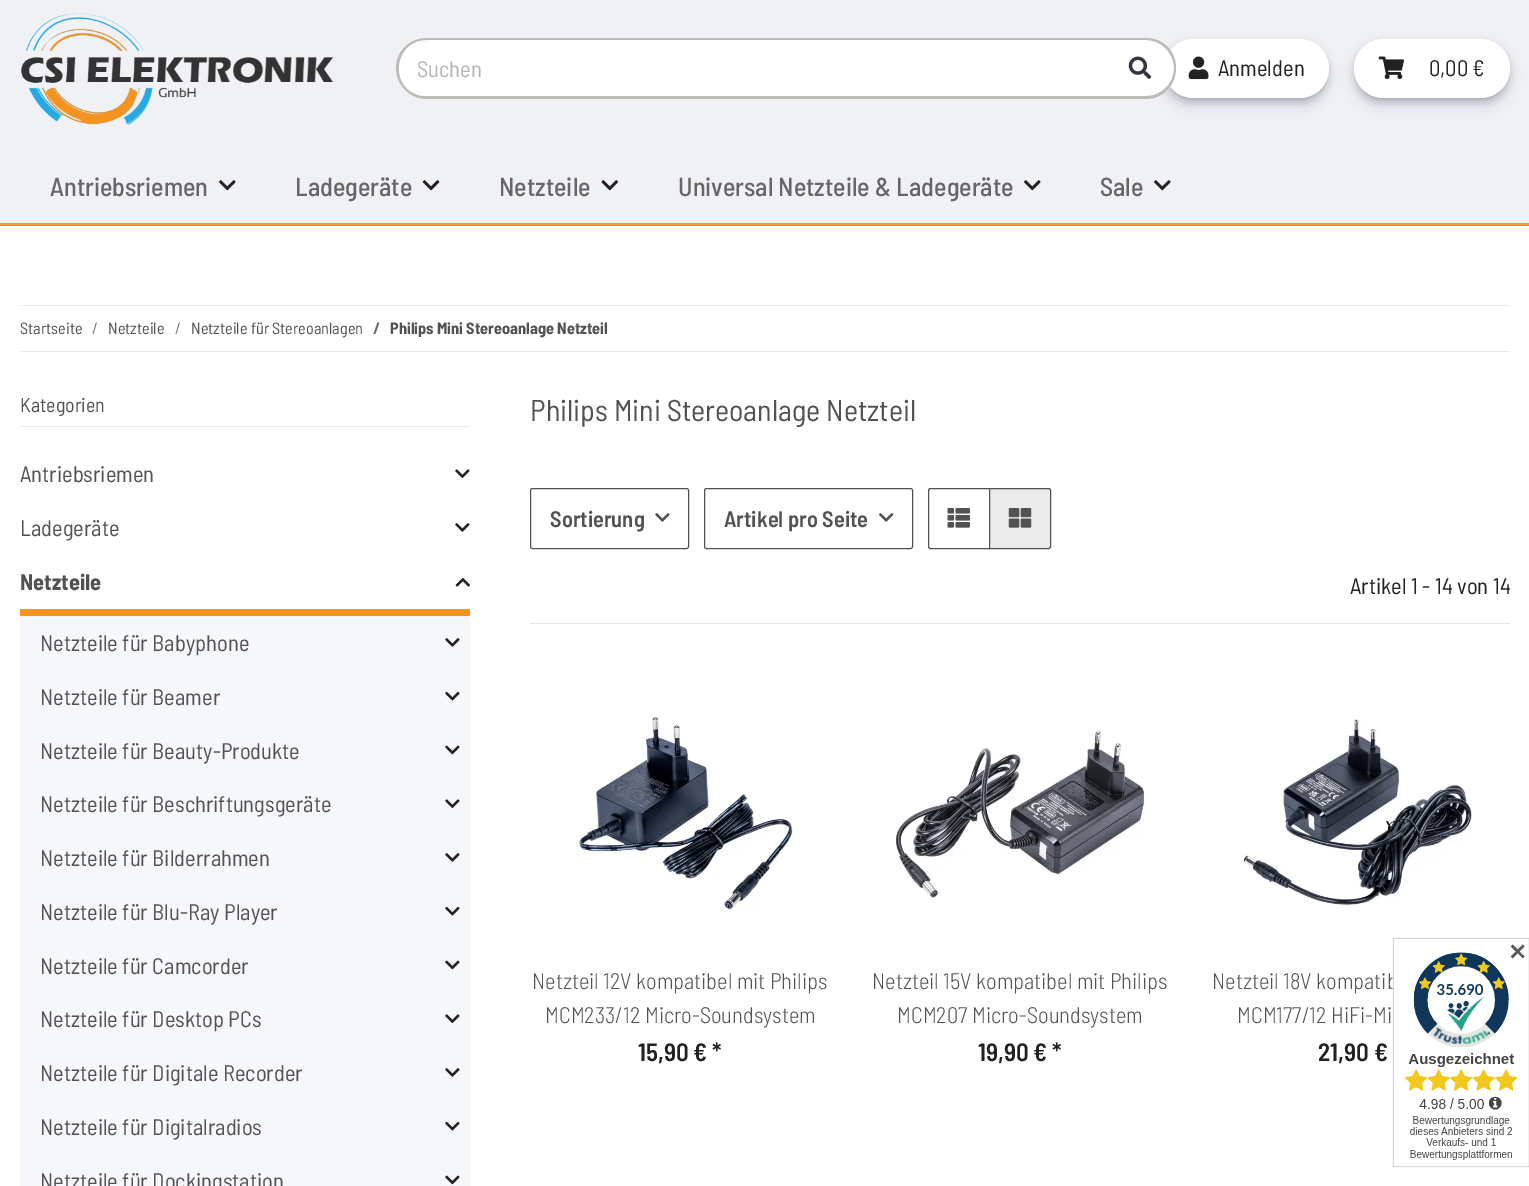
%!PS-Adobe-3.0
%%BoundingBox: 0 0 1529 1186
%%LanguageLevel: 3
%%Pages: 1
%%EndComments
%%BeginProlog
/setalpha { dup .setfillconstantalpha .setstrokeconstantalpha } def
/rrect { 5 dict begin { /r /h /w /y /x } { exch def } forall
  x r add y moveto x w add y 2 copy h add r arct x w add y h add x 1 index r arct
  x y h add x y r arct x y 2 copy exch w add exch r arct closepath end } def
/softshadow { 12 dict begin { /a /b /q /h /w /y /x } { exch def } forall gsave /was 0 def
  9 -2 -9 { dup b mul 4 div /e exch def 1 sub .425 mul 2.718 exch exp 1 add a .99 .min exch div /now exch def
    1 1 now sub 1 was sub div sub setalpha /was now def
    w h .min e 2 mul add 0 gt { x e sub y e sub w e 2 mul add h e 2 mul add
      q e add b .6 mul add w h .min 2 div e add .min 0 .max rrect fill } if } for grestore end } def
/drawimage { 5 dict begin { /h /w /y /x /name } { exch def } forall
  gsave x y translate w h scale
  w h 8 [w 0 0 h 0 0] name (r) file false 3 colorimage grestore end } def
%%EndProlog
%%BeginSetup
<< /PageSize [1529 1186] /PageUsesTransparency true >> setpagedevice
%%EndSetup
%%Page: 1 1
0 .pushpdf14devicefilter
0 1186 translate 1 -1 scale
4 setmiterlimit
1 setgray
0 0 1529 1186 rectfill
0.937 0.945 0.961 setrgbcolor
0 0 1529 223 rectfill
0.965 0.573 0.118 setrgbcolor
0 223 1529 3 rectfill
(images/1.raw) 21 13 313 112 drawimage
1 setgray
newpath 427 40 moveto 1108 40 lineto 1108 96 lineto 427 96 lineto 421 96 lineto 388 89 393 40 427 40 curveto closepath fill
0.733 0.733 0.722 setrgbcolor
newpath 427 38 moveto 1105 38 lineto 1106 38 1108 39 1108 40 curveto 1108 96 lineto 1108 98 1106 99 1105 99 curveto 427 99 lineto 410 99 396 85 396 68 curveto 396 51 410 38 427 38 curveto closepath 427 40 moveto 1108 40 lineto 1108 96 lineto 427 96 lineto 421 96 lineto 388 89 393 40 427 40 curveto closepath eofill
0 setgray
1168 46 157 52 26 4.5 0.3 softshadow
0.196 0.196 0.365 setrgbcolor
1166 49 160 54 27 7.5 0.25 softshadow
1 setgray
1164 39 165 59 29.5 rrect fill
newpath 1106 38 moveto 1145.5 38 lineto 1162.5 38 1176 51.5 1176 68.5 curveto 1176 85.5 1162.5 99 1145.5 99 curveto 1106 99 lineto closepath fill
0.733 0.733 0.722 setrgbcolor
newpath 1106 38 moveto 1146 38 lineto 1163 38 1176 51 1176 68 curveto 1176 85 1163 99 1146 99 curveto 1106 99 lineto closepath 1106 40 moveto 1146 40 lineto 1161 40 1174 53 1174 68 curveto 1174 84 1161 96 1146 96 curveto 1106 96 lineto closepath eofill
(images/2.raw) 1128 56 24 23 drawimage
(images/3.raw) 1188 56 21 24 drawimage
0 setgray
1358 46 148 52 26 4.5 0.3 softshadow
0.196 0.196 0.365 setrgbcolor
1356 49 152 54 27 7.5 0.25 softshadow
1 setgray
1354 39 156 59 29.5 rrect fill
(images/4.raw) 1378 56 26 23 drawimage
(images/5.raw) 219 180 17 11 drawimage
(images/6.raw) 422 180 18 11 drawimage
(images/7.raw) 601 180 17 11 drawimage
(images/5.raw) 1024 180 17 11 drawimage
(images/5.raw) 1154 180 17 11 drawimage
0.922 setgray
20 305 1490 1 rectfill
20 351 1490 1 rectfill
20 426 450 1 rectfill
(images/8.raw) 455 469 15 9 drawimage
(images/9.raw) 455 523 15 9 drawimage
0.965 0.576 0.118 setrgbcolor
20 609 450 7 rectfill
(images/10.raw) 455 577 15 10 drawimage
0.961 0.969 0.98 setrgbcolor
20 616 450 570 rectfill
(images/11.raw) 445 638 15 9 drawimage
(images/12.raw) 445 691 15 10 drawimage
(images/13.raw) 445 745 15 10 drawimage
(images/14.raw) 445 799 15 9 drawimage
(images/11.raw) 445 853 15 9 drawimage
(images/12.raw) 445 906 15 10 drawimage
(images/13.raw) 445 960 15 10 drawimage
(images/14.raw) 445 1014 15 9 drawimage
(images/11.raw) 445 1068 15 9 drawimage
(images/12.raw) 445 1121 15 10 drawimage
(images/13.raw) 445 1175 15 10 drawimage
0.322 setgray
530.5 488.5 158 60 2 rrect stroke
(images/15.raw) 655 513 15 9 drawimage
704.5 488.5 208 60 2 rrect stroke
(images/16.raw) 879 513 15 9 drawimage
newpath 930.5 488.5 moveto 989.5 488.5 lineto 989.5 548.5 lineto 930.5 548.5 lineto 929.5 548.5 928.5 547.5 928.5 546.5 curveto 928.5 490.5 lineto 928.5 489.5 929.5 488.5 930.5 488.5 curveto closepath stroke
(images/17.raw) 947 508 23 20 drawimage
0.922 setgray
newpath 989.5 488.5 moveto 1048.5 488.5 lineto 1049.5 488.5 1050.5 489.5 1050.5 490.5 curveto 1050.5 546.5 lineto 1050.5 547.5 1049.5 548.5 1048.5 548.5 curveto 989.5 548.5 lineto closepath gsave fill grestore
0.322 setgray
stroke
(images/18.raw) 1008 508 24 20 drawimage
0.902 setgray
530 623 980 1 rectfill
(images/19.raw) 579 717 215 193 drawimage
(images/20.raw) 896 730 249 168 drawimage
(images/21.raw) 1244 719 228 187 drawimage
/BarlowSemiCondensed-Regular [22.5 0 0 -22.5 0 0] selectfont
0.706 setgray
417 77 moveto (Suchen) show
0.133 setgray
1218 76 moveto (Anmelden) show
1429 76 moveto (0,00 €) show
/BarlowSemiCondensed-Medium [26 0 0 -26 0 0] selectfont
0.4 setgray
50 196 moveto (Antriebsriemen) show
295 196 moveto (Ladegeräte) show
499 196 moveto (Netzteile) show
678 196 moveto (Universal Netzteile & Ladegeräte) show
1100 196 moveto (Sale) show
/BarlowSemiCondensed-Regular [16.25 0 0 -16.25 0 0] selectfont
0.322 setgray
20 334 moveto (Startseite) show
0.439 setgray
92 334 moveto (/) show
0.322 setgray
108 334 moveto (Netzteile) show
0.439 setgray
175 334 moveto (/) show
0.322 setgray
191 334 moveto (Netzteile für Stereoanlagen) show
/BarlowSemiCondensed-Bold [16.25 0 0 -16.25 0 0] selectfont
0.439 setgray
373 334 moveto (/) show
0.322 setgray
390 334 moveto (Philips Mini Stereoanlage Netzteil) show
/BarlowSemiCondensed-Regular [20 0 0 -20 0 0] selectfont
20 412 moveto (Kategorien) show
/BarlowSemiCondensed-Regular [22.5 0 0 -22.5 0 0] selectfont
20 482 moveto (Antriebsriemen) show
20 536 moveto (Ladegeräte) show
/BarlowSemiCondensed-Bold [22.5 0 0 -22.5 0 0] selectfont
20 590 moveto (Netzteile) show
/BarlowSemiCondensed-Regular [22.5 0 0 -22.5 0 0] selectfont
40 651 moveto (Netzteile für Babyphone) show
40 705 moveto (Netzteile für Beamer) show
40 759 moveto (Netzteile für Beauty-Produkte) show
40 812 moveto (Netzteile für Beschriftungsgeräte) show
40 866 moveto (Netzteile für Bilderrahmen) show
40 920 moveto (Netzteile für Blu-Ray Player) show
40 974 moveto (Netzteile für Camcorder) show
40 1027 moveto (Netzteile für Desktop PCs) show
40 1081 moveto (Netzteile für Digitale Recorder) show
40 1135 moveto (Netzteile für Digitalradios) show
40 1189 moveto (Netzteile für Dockingstation) show
/BarlowSemiCondensed-Regular [30 0 0 -30 0 0] selectfont
530 421 moveto (Philips Mini Stereoanlage Netzteil) show
/BarlowSemiCondensed-SemiBold [22.5 0 0 -22.5 0 0] selectfont
550 527 moveto (Sortierung) show
724 527 moveto (Artikel pro Seite) show
/BarlowSemiCondensed-Regular [22.5 0 0 -22.5 0 0] selectfont
0.133 setgray
1350 594 moveto (Artikel 1 - 14 von 14) show
/BarlowSemiCondensed-Light [22.5 0 0 -22.5 0 0] selectfont
0.322 setgray
532 989 moveto (Netzteil 12V kompatibel mit Philips) show
545 1023 moveto (MCM233/12 Micro-Soundsystem) show
/BarlowSemiCondensed-SemiBold [25 0 0 -25 0 0] selectfont
0.133 setgray
638 1061 moveto (15,90 € *) show
/BarlowSemiCondensed-Light [22.5 0 0 -22.5 0 0] selectfont
0.322 setgray
872 989 moveto (Netzteil 15V kompatibel mit Philips) show
897 1023 moveto (MCM207 Micro-Soundsystem) show
/BarlowSemiCondensed-SemiBold [25 0 0 -25 0 0] selectfont
0.133 setgray
978 1061 moveto (19,90 € *) show
/BarlowSemiCondensed-Light [22.5 0 0 -22.5 0 0] selectfont
0.322 setgray
1212 989 moveto (Netzteil 18V kompatib) show
1237 1023 moveto (MCM177/12 HiFi-Mi) show
/BarlowSemiCondensed-SemiBold [25 0 0 -25 0 0] selectfont
0.133 setgray
1318 1061 moveto (21,90 €) show
(images/22.raw) 1392 937 137 231 drawimage
/DejaVuSans-Bold [22.5 0 0 -22.5 0 0] selectfont
0.349 setgray
1508 960 moveto (✕) show
.poppdf14devicefilter showpage
%%EOF
